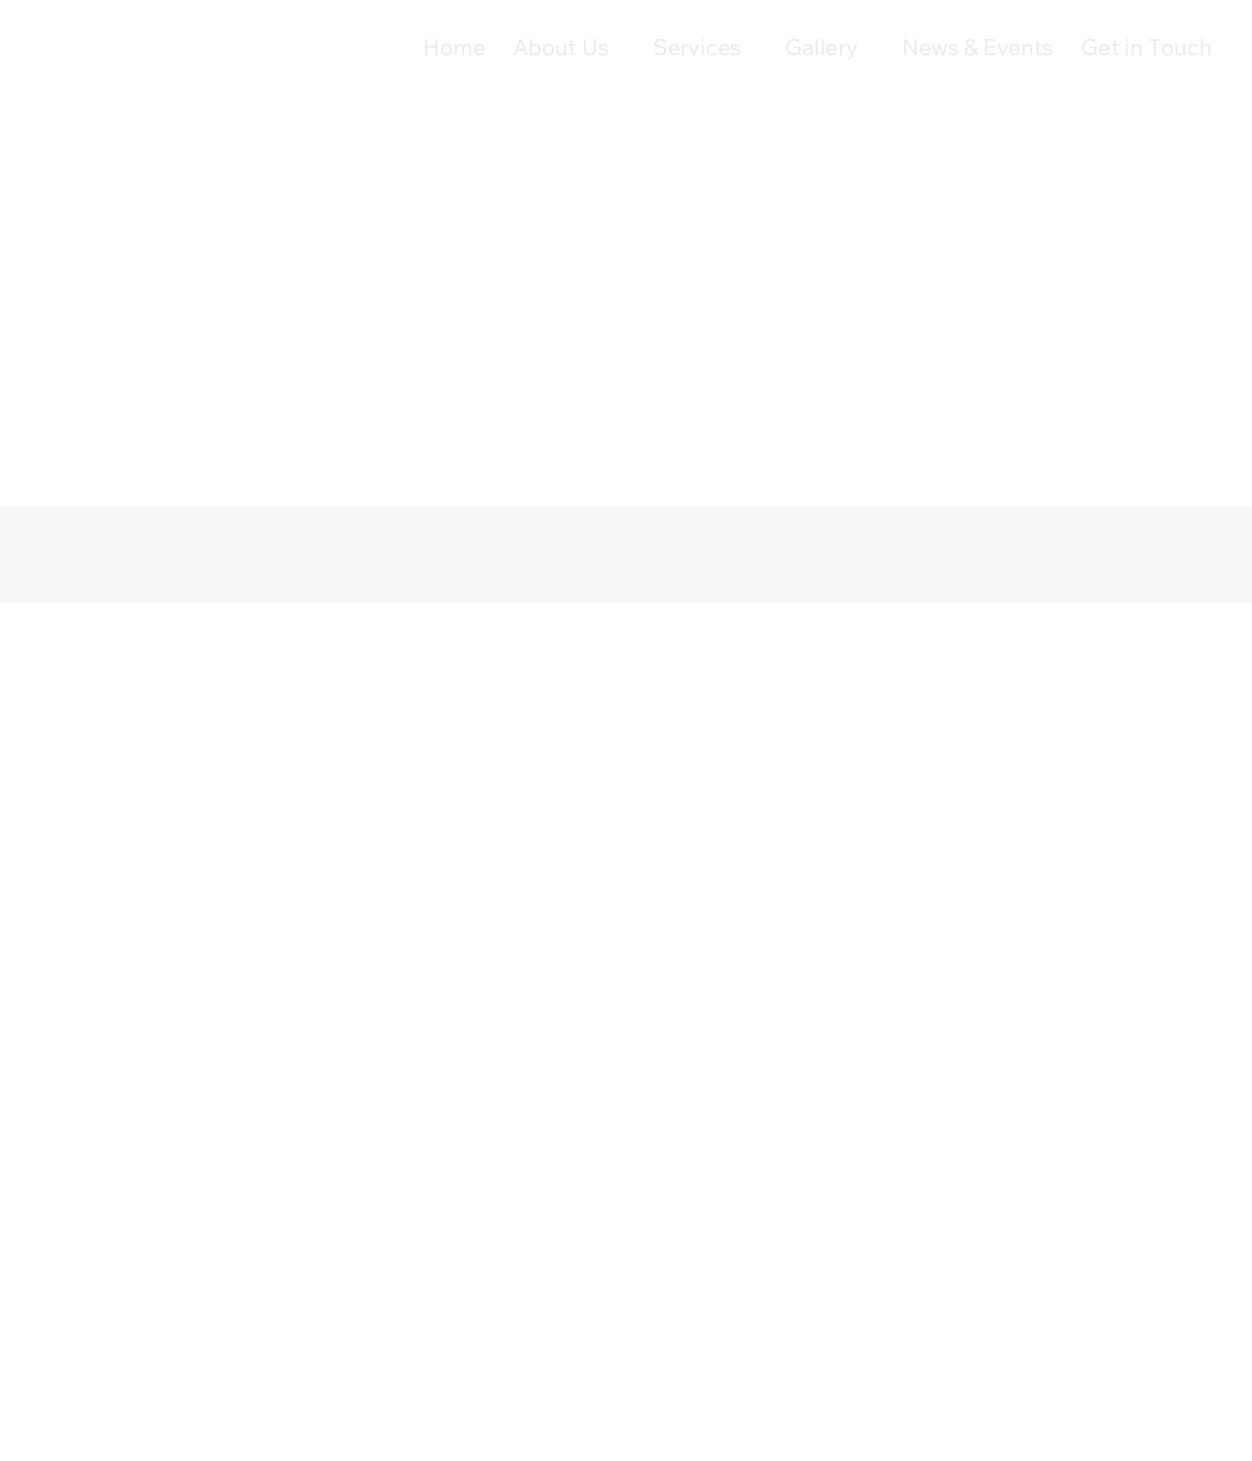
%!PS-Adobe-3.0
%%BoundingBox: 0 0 1252 1461
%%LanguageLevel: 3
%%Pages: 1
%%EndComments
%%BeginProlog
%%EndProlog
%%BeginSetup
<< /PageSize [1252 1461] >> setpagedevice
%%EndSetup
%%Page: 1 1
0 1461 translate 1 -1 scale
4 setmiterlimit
1 setgray
0 0 1252 1461 rectfill
0.969 setgray
0 506 1252 97 rectfill
/WixMadeforText-Regular [22 0 0 -22 0 0] selectfont
0.91 0.918 0.929 setrgbcolor
423 55 moveto (Home) show
513 55 moveto (About Us) show
653 55 moveto (Services) show
785 55 moveto (Gallery) show
902 55 moveto (News & Events) show
1081 55 moveto (Get in Touch) show
showpage
%%EOF
